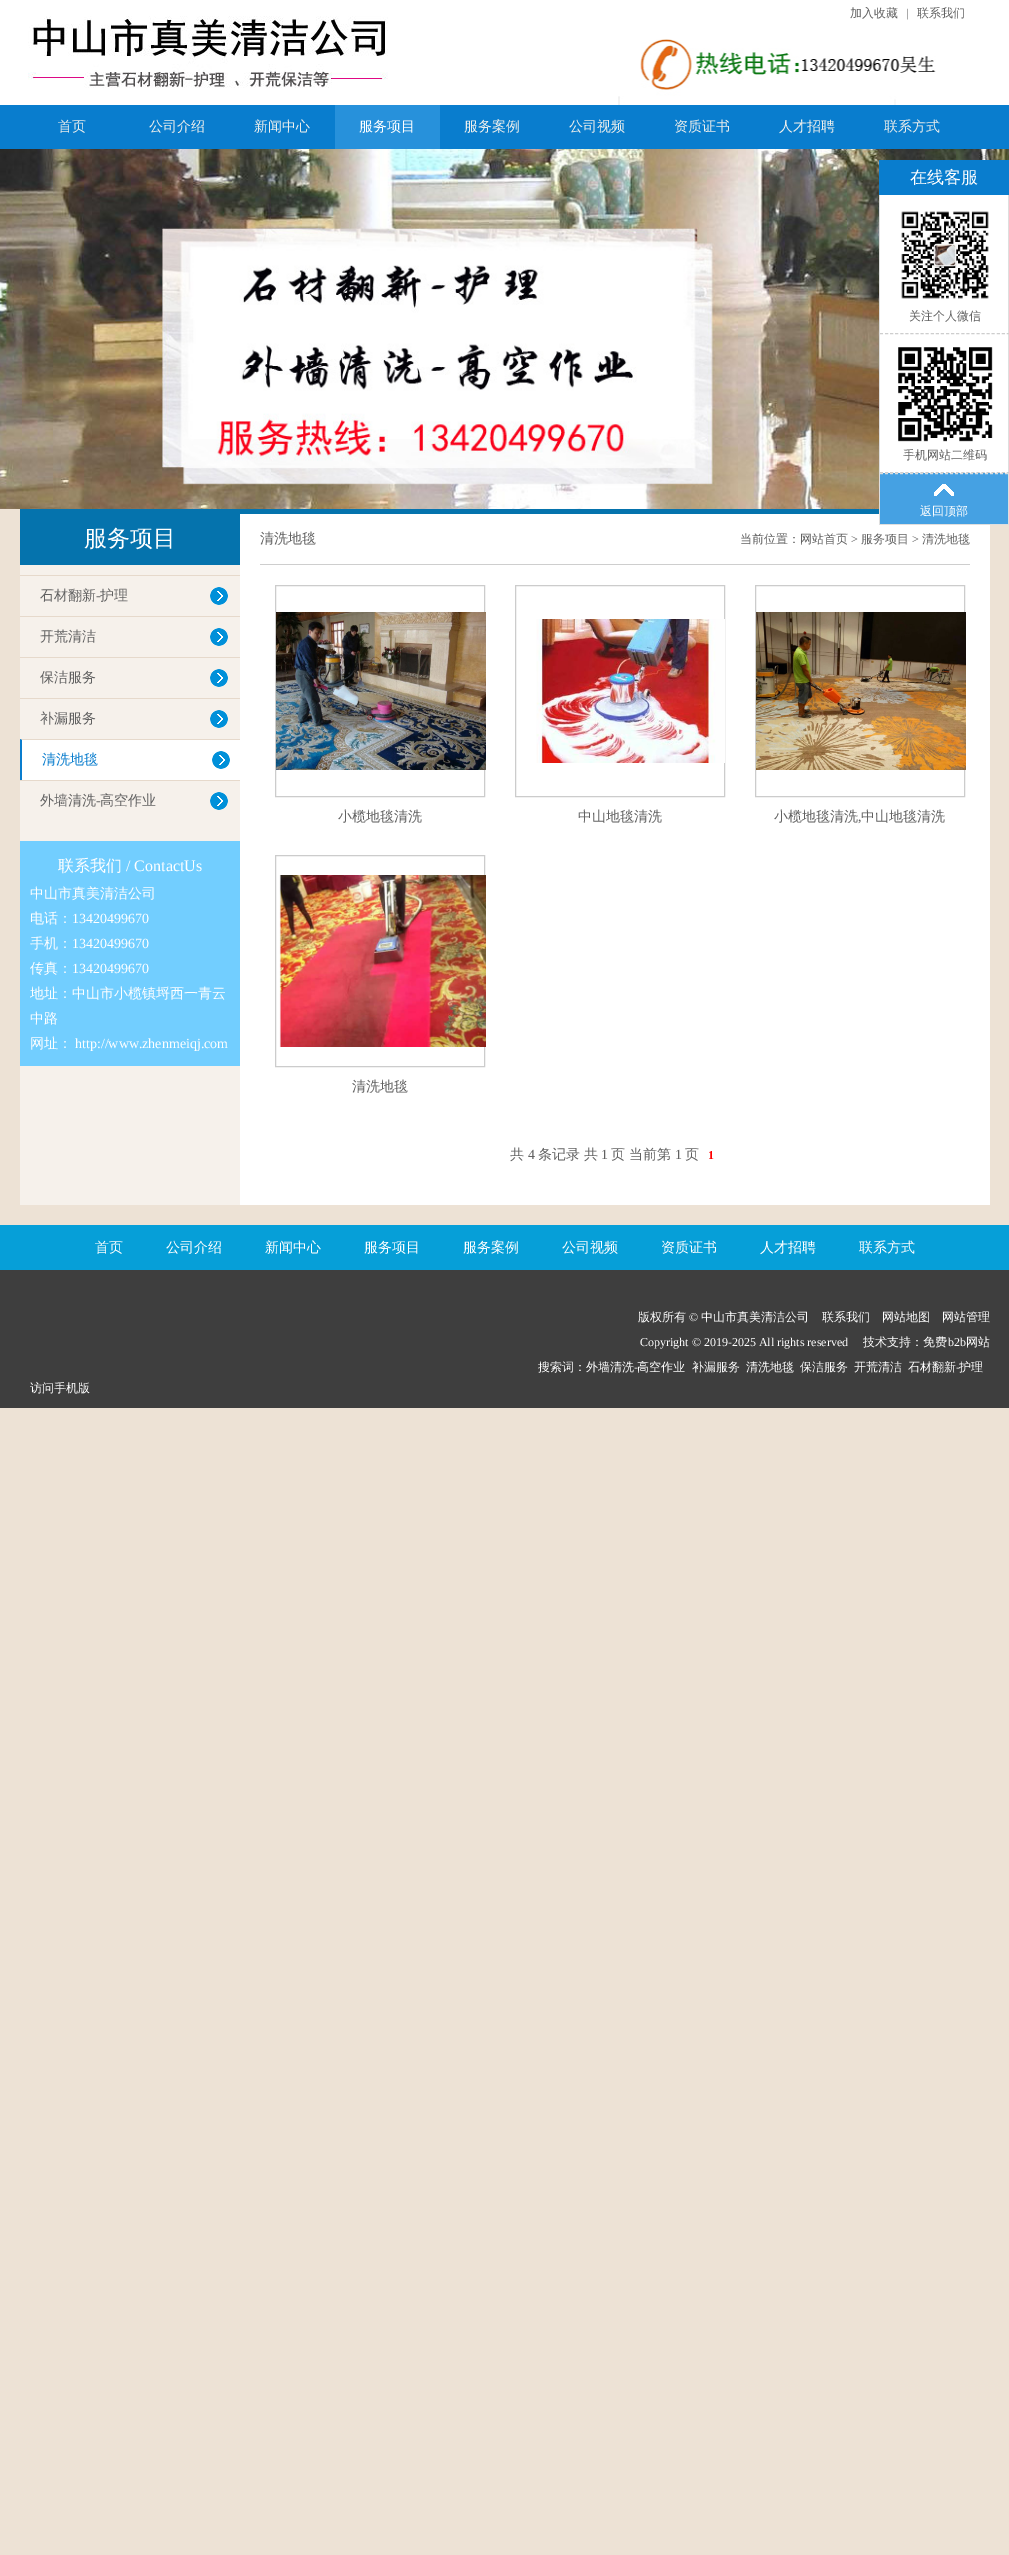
%!PS-Adobe-3.0
%%BoundingBox: 0 0 1009 2555
%%LanguageLevel: 3
%%Pages: 1
%%EndComments
%%BeginProlog
/drawimage { 5 dict begin { /h /w /y /x /name } { exch def } forall
  gsave x y translate w h scale
  w h 8 [w 0 0 h 0 0] name (r) file false 3 colorimage grestore end } def
%%EndProlog
%%BeginSetup
<< /PageSize [1009 2555] >> setpagedevice
%%EndSetup
%%Page: 1 1
0 2555 translate 1 -1 scale
4 setmiterlimit
0.929 0.886 0.835 setrgbcolor
0 0 1009 2555 rectfill
1 setgray
0 0 1009 105 rectfill
(images/1.raw) 618 39 318 66 drawimage
(images/2.raw) 28 16 360 72 drawimage
0.035 0.49 0.808 setrgbcolor
0 105 1009 44 rectfill
0.153 0.569 0.859 setrgbcolor
335 105 105 44 rectfill
(images/3.raw) 0 149 1009 360 drawimage
1 setgray
880 195 128 278 rectfill
0.035 0.49 0.808 setrgbcolor
879 160 130 35 rectfill
0.871 setgray
1008 195 1 330 rectfill
1 setgray
240 514 750 691 rectfill
0.871 setgray
879 524 130 1 rectfill
879 195 1 330 rectfill
0.808 setgray
[3 2.08] 0 setdash
newpath 880 333.5 moveto 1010 333.5 lineto stroke
(images/4.raw) 901 211 88 88 drawimage
newpath 880 472.5 moveto 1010 472.5 lineto stroke
(images/5.raw) 898 347 95 95 drawimage
0.271 0.631 0.89 setrgbcolor
880 473 128 51 rectfill
(images/6.raw) 934 484 20 12 drawimage
0.871 setgray
[3 2] 0 setdash
newpath 880 473.5 moveto 1008 473.5 lineto stroke
0.02 0.451 0.678 setrgbcolor
20 509 859 5 rectfill
0.965 0.945 0.922 setrgbcolor
20 565 220 640 rectfill
0.02 0.451 0.678 setrgbcolor
20 514 220 51 rectfill
(images/7.raw) 210 587 18 18 drawimage
0.902 0.851 0.796 setrgbcolor
20 575 220 1 rectfill
(images/7.raw) 210 628 18 18 drawimage
20 616 220 1 rectfill
(images/7.raw) 210 669 18 18 drawimage
20 657 220 1 rectfill
(images/7.raw) 210 710 18 18 drawimage
20 698 220 1 rectfill
1 setgray
20 739 220 41 rectfill
(images/8.raw) 212 751 18 18 drawimage
0.902 0.851 0.796 setrgbcolor
newpath 20 739 moveto 240 739 lineto 240 740 lineto 22 740 lineto closepath fill
0.035 0.49 0.808 setrgbcolor
newpath 20 780 moveto 20 739 lineto 22 740 lineto 22 780 lineto closepath fill
(images/7.raw) 210 792 18 18 drawimage
0.902 0.851 0.796 setrgbcolor
20 780 220 1 rectfill
0.447 0.808 1 setrgbcolor
20 841 220 225 rectfill
0.808 setgray
260 564 710 1 rectfill
0.8 setgray
[] 0 setdash
275.5 585.5 209 211 rectstroke
(images/9.raw) 276 612 210 158 drawimage
515.5 585.5 209 211 rectstroke
(images/10.raw) 536 619 189 144 drawimage
755.5 585.5 209 211 rectstroke
(images/11.raw) 756 612 210 158 drawimage
275.5 855.5 209 211 rectstroke
(images/12.raw) 279 875 207 172 drawimage
0.024 0.624 0.847 setrgbcolor
0 1225 1009 45 rectfill
0.243 setgray
0 1270 1009 138 rectfill
/WenQuanYiZenHei-Medium [12 0 0 -12 0 0] selectfont
0.38 setgray
850 17 moveto (加入收藏) show
/LiberationSerif-Regular [12 0 0 -12 0 0] selectfont
906 17 moveto (|) show
/WenQuanYiZenHei-Medium [12 0 0 -12 0 0] selectfont
917 17 moveto (联系我们) show
/WenQuanYiZenHei-Medium [14 0 0 -14 0 0] selectfont
0.929 0.937 0.929 setrgbcolor
58 131 moveto (首页) show
149 131 moveto (公司介绍) show
254 131 moveto (新闻中心) show
1 setgray
359 131 moveto (服务项目) show
0.929 0.937 0.929 setrgbcolor
464 131 moveto (服务案例) show
569 131 moveto (公司视频) show
674 131 moveto (资质证书) show
779 131 moveto (人才招聘) show
884 131 moveto (联系方式) show
/WenQuanYiZenHei-Medium [17 0 0 -17 0 0] selectfont
1 setgray
910 183 moveto (在线客服) show
/WenQuanYiZenHei-Medium [12 0 0 -12 0 0] selectfont
0.38 setgray
909 320 moveto (关注个人微信) show
903 459 moveto (手机网站二维码) show
1 setgray
920 515 moveto (返回顶部) show
/WenQuanYiZenHei-Medium [23 0 0 -23 0 0] selectfont
84 546 moveto (服务项目) show
/WenQuanYiZenHei-Medium [14 0 0 -14 0 0] selectfont
0.38 setgray
40 600 moveto (石材翻新) show
/LiberationSerif-Regular [14 0 0 -14 0 0] selectfont
96 600 moveto (-) show
/WenQuanYiZenHei-Medium [14 0 0 -14 0 0] selectfont
100 600 moveto (护理) show
40 641 moveto (开荒清洁) show
40 682 moveto (保洁服务) show
40 723 moveto (补漏服务) show
0.035 0.49 0.808 setrgbcolor
42 764 moveto (清洗地毯) show
0.38 setgray
40 805 moveto (外墙清洗) show
/LiberationSerif-Regular [14 0 0 -14 0 0] selectfont
96 805 moveto (-) show
/WenQuanYiZenHei-Medium [14 0 0 -14 0 0] selectfont
100 805 moveto (高空作业) show
/WenQuanYiZenHei-Medium [16 0 0 -16 0 0] selectfont
1 setgray
58 871 moveto (联系我们) show
/LiberationSerif-Regular [16 0 0 -16 0 0] selectfont
126 871 moveto (/ ContactUs) show
/WenQuanYiZenHei-Medium [14 0 0 -14 0 0] selectfont
30 898 moveto (中山市真美清洁公司) show
30 923 moveto (电话：) show
/LiberationSerif-Regular [14 0 0 -14 0 0] selectfont
72 923 moveto (13420499670) show
/WenQuanYiZenHei-Medium [14 0 0 -14 0 0] selectfont
30 948 moveto (手机：) show
/LiberationSerif-Regular [14 0 0 -14 0 0] selectfont
72 948 moveto (13420499670) show
/WenQuanYiZenHei-Medium [14 0 0 -14 0 0] selectfont
30 973 moveto (传真：) show
/LiberationSerif-Regular [14 0 0 -14 0 0] selectfont
72 973 moveto (13420499670) show
/WenQuanYiZenHei-Medium [14 0 0 -14 0 0] selectfont
30 998 moveto (地址：中山市小榄镇埒西一青云) show
30 1023 moveto (中路) show
30 1048 moveto (网址：) show
/LiberationSerif-Regular [14 0 0 -14 0 0] selectfont
75 1048 moveto (http://www.zhenmeiqj.com) show
/WenQuanYiZenHei-Medium [14 0 0 -14 0 0] selectfont
0.38 setgray
260 543 moveto (清洗地毯) show
/WenQuanYiZenHei-Medium [12 0 0 -12 0 0] selectfont
740 543 moveto (当前位置：网站首页) show
/LiberationSerif-Regular [12 0 0 -12 0 0] selectfont
851 543 moveto (>) show
/WenQuanYiZenHei-Medium [12 0 0 -12 0 0] selectfont
861 543 moveto (服务项目) show
/LiberationSerif-Regular [12 0 0 -12 0 0] selectfont
912 543 moveto (>) show
/WenQuanYiZenHei-Medium [12 0 0 -12 0 0] selectfont
922 543 moveto (清洗地毯) show
/WenQuanYiZenHei-Medium [14 0 0 -14 0 0] selectfont
338 821 moveto (小榄地毯清洗) show
578 821 moveto (中山地毯清洗) show
774 821 moveto (小榄地毯清洗) show
/LiberationSerif-Regular [14 0 0 -14 0 0] selectfont
858 821 moveto (,) show
/WenQuanYiZenHei-Medium [14 0 0 -14 0 0] selectfont
861 821 moveto (中山地毯清洗) show
352 1091 moveto (清洗地毯) show
510 1159 moveto (共) show
/LiberationSerif-Regular [14 0 0 -14 0 0] selectfont
528 1159 moveto (4) show
/WenQuanYiZenHei-Medium [14 0 0 -14 0 0] selectfont
538 1159 moveto (条记录 共) show
/LiberationSerif-Regular [14 0 0 -14 0 0] selectfont
601 1159 moveto (1) show
/WenQuanYiZenHei-Medium [14 0 0 -14 0 0] selectfont
611 1159 moveto (页 当前第) show
/LiberationSerif-Regular [14 0 0 -14 0 0] selectfont
675 1159 moveto (1) show
/WenQuanYiZenHei-Medium [14 0 0 -14 0 0] selectfont
685 1159 moveto (页) show
/LiberationSerif-Bold [12 0 0 -12 0 0] selectfont
1 0 0 setrgbcolor
708 1159 moveto (1) show
/WenQuanYiZenHei-Medium [14 0 0 -14 0 0] selectfont
1 setgray
95 1252 moveto (首页) show
166 1252 moveto (公司介绍) show
265 1252 moveto (新闻中心) show
364 1252 moveto (服务项目) show
463 1252 moveto (服务案例) show
562 1252 moveto (公司视频) show
661 1252 moveto (资质证书) show
760 1252 moveto (人才招聘) show
859 1252 moveto (联系方式) show
/WenQuanYiZenHei-Medium [12 0 0 -12 0 0] selectfont
638 1321 moveto (版权所有) show
/LiberationSerif-Regular [12 0 0 -12 0 0] selectfont
689 1321 moveto (©) show
/WenQuanYiZenHei-Medium [12 0 0 -12 0 0] selectfont
701 1321 moveto (中山市真美清洁公司) show
822 1321 moveto (联系我们) show
882 1321 moveto (网站地图) show
942 1321 moveto (网站管理) show
/LiberationSerif-Regular [12 0 0 -12 0 0] selectfont
640 1346 moveto (Copyright © 2019-2025 All rights reserved) show
/WenQuanYiZenHei-Medium [12 0 0 -12 0 0] selectfont
863 1346 moveto (技术支持：免费) show
/LiberationSerif-Regular [12 0 0 -12 0 0] selectfont
948 1346 moveto (b2b) show
/WenQuanYiZenHei-Medium [12 0 0 -12 0 0] selectfont
966 1346 moveto (网站) show
538 1371 moveto (搜索词：外墙清洗) show
/LiberationSerif-Regular [12 0 0 -12 0 0] selectfont
634 1371 moveto (-) show
/WenQuanYiZenHei-Medium [12 0 0 -12 0 0] selectfont
637 1371 moveto (高空作业) show
692 1371 moveto (补漏服务) show
746 1371 moveto (清洗地毯) show
800 1371 moveto (保洁服务) show
854 1371 moveto (开荒清洁) show
908 1371 moveto (石材翻新) show
/LiberationSerif-Regular [12 0 0 -12 0 0] selectfont
956 1371 moveto (-) show
/WenQuanYiZenHei-Medium [12 0 0 -12 0 0] selectfont
959 1371 moveto (护理) show
30 1392 moveto (访问手机版) show
showpage
%%EOF
